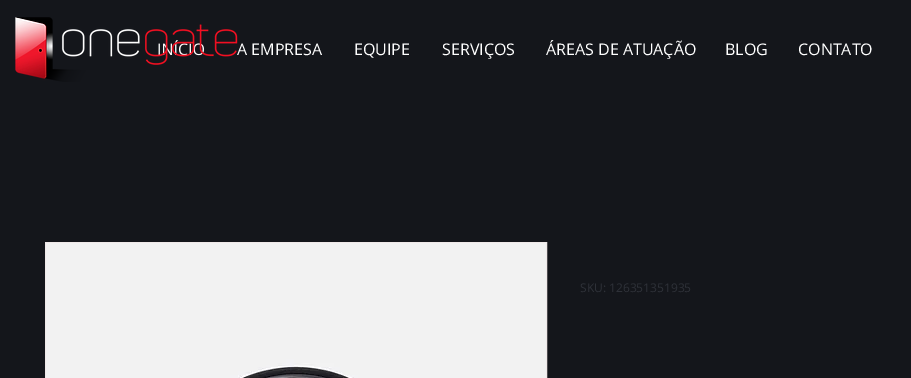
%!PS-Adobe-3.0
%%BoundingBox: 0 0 911 378
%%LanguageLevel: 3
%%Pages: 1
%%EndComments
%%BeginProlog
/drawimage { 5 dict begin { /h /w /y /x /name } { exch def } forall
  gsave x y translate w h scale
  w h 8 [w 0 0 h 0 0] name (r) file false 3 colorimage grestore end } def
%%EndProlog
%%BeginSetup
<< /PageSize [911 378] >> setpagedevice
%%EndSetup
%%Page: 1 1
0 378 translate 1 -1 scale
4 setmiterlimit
0.078 0.086 0.106 setrgbcolor
0 0 911 378 rectfill
0.941 0.914 0.914 setrgbcolor
45.5 242.5 501 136 rectstroke
(images/2.raw) 46 243 500 135 drawimage
/OpenSans-Regular [16 0 0 -16 0 0] selectfont
1 setgray
157 55 moveto (INÍCIO) show
237 55 moveto (A EMPRESA) show
(images/1.raw) 15 17 223 65 drawimage
354 55 moveto (EQUIPE) show
442 55 moveto (SERVIÇOS) show
546 55 moveto (ÁREAS DE ATUAÇÃO) show
725 55 moveto (BLOG) show
798 55 moveto (CONTATO) show
/OpenSans-Regular [12 0 0 -12 0 0] selectfont
0.18 0.192 0.22 setrgbcolor
580 292 moveto (SKU: 126351351935) show
showpage
%%EOF
